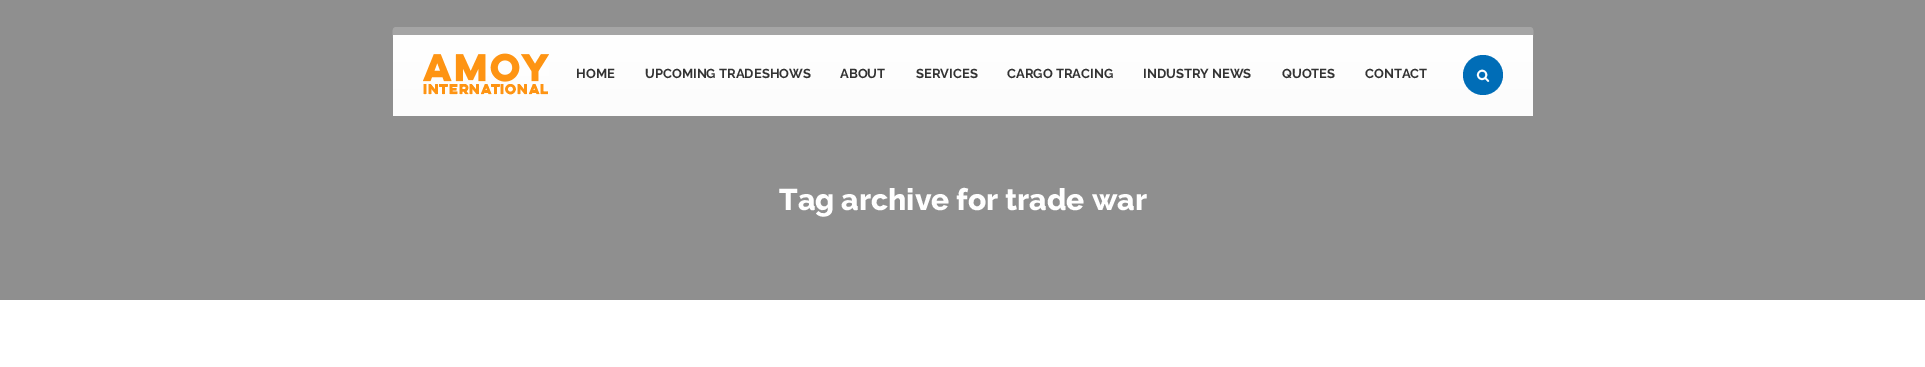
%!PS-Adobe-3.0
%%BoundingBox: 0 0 1925 367
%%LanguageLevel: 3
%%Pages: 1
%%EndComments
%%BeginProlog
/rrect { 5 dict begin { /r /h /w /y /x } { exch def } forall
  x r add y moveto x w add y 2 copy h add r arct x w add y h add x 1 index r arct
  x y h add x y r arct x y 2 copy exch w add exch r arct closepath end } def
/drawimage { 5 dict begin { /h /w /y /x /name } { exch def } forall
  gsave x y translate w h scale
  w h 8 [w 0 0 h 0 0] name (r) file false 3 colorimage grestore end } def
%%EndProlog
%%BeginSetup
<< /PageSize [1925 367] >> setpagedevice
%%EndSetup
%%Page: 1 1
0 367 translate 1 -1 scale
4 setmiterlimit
1 setgray
0 0 1925 367 rectfill
0.561 setgray
0 0 1925 300 rectfill
0.647 setgray
newpath 396 27 moveto 391 27 393 35 393 38 curveto 393 36 394 35 396 35 curveto 1530 35 lineto 1532 35 1533 36 1533 38 curveto 1533 35 1535 27 1530 27 curveto closepath fill
gsave 393 35 1140 81 3 rrect clip newpath
<< /ShadingType 2 /ColorSpace /DeviceRGB /Coords [963 35 963 116] /Extend [true true] /Function << /FunctionType 2 /Domain [0 1] /C0 [1 1 1] /C1 [0.988 0.988 0.988] /N 1 >> >> shfill grestore
(images/1.raw) 423 53 126 42 drawimage
0 0.427 0.718 setrgbcolor
newpath 1483 75 20 0 360 arc closepath fill
(images/2.raw) 1476 69 14 13 drawimage
/Raleway-Bold [13 0 0 -13 0 0] selectfont
0.2 setgray
576 78 moveto (HOME) show
645 78 moveto (UPCOMING TRADESHOWS) show
840 78 moveto (ABOUT) show
916 78 moveto (SERVICES) show
1007 78 moveto (CARGO TRACING) show
1143 78 moveto (INDUSTRY NEWS) show
1282 78 moveto (QUOTES) show
1365 78 moveto (CONTACT) show
/Raleway-ExtraBold [30 0 0 -30 0 0] selectfont
1 setgray
779 210 moveto (Tag archive for trade war) show
showpage
%%EOF
